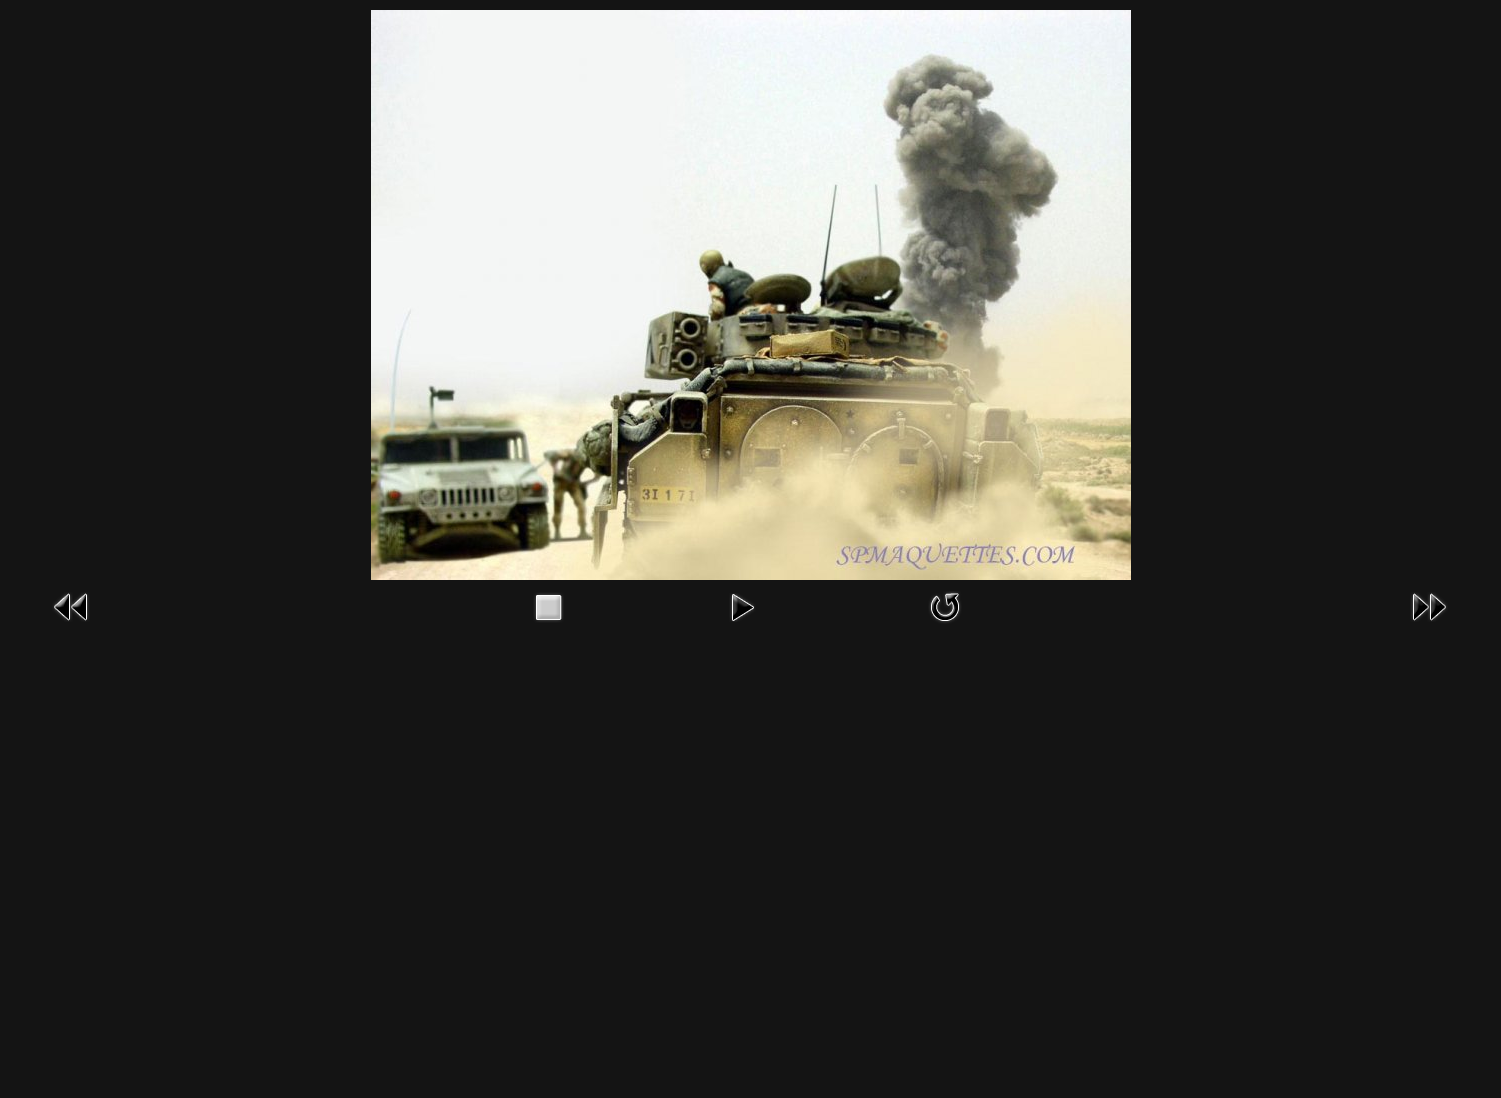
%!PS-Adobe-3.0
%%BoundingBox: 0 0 1501 1098
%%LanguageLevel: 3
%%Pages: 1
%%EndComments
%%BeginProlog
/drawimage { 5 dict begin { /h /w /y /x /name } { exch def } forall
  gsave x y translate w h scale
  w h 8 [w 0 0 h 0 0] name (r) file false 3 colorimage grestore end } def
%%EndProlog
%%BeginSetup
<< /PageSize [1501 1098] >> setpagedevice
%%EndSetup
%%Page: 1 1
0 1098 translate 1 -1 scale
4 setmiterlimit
0.078 setgray
0 0 1501 1098 rectfill
(images/1.raw) 371 10 760 570 drawimage
(images/2.raw) 52 592 38 30 drawimage
(images/3.raw) 533 592 31 31 drawimage
(images/4.raw) 729 593 27 29 drawimage
(images/5.raw) 928 591 34 33 drawimage
(images/6.raw) 1410 592 38 30 drawimage
showpage
%%EOF
